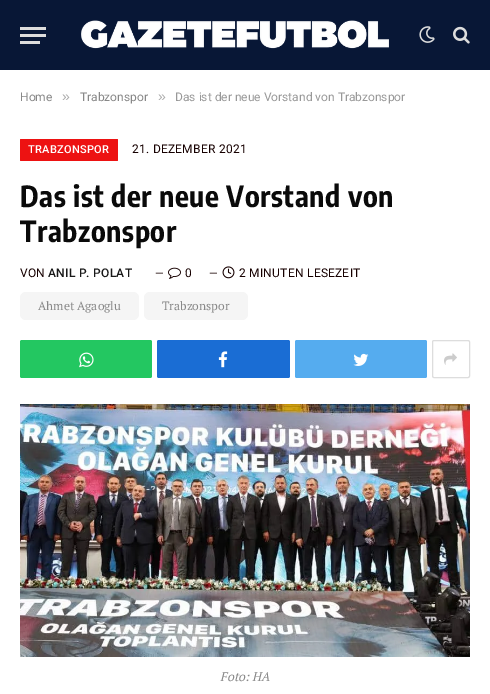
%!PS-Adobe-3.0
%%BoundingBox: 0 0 490 694
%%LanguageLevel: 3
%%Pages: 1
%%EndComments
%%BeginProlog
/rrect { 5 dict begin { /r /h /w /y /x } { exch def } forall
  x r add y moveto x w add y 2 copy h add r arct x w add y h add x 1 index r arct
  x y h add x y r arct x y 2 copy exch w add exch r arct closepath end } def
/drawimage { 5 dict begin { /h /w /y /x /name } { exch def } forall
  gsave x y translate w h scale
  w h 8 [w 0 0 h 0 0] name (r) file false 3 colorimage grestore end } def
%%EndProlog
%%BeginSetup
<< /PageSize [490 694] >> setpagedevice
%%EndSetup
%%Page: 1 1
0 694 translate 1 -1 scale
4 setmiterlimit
1 setgray
0 0 490 694 rectfill
0.031 0.09 0.212 setrgbcolor
0 0 490 70 rectfill
0.867 setgray
20 41 20 3 rectfill
20 27 26 3 rectfill
20 34 26 3 rectfill
(images/1.raw) 81 20 308 29 drawimage
(images/2.raw) 419 26 16 17 drawimage
(images/3.raw) 453 26 17 18 drawimage
0.929 0.071 0.071 setrgbcolor
20 139 98 22 1 rrect fill
(images/4.raw) 168 267 13 12 drawimage
(images/5.raw) 222 266 13 13 drawimage
0.961 setgray
20 292 119 28 6 rrect fill
144 292 104 28 6 rrect fill
0.137 0.78 0.38 setrgbcolor
20 340 132 38 2 rrect fill
(images/6.raw) 79 352 15 16 drawimage
0.102 0.427 0.831 setrgbcolor
157 340 133 38 2 rrect fill
(images/7.raw) 218 351 10 17 drawimage
0.333 0.675 0.937 setrgbcolor
295 340 132 38 2 rrect fill
(images/8.raw) 353 353 16 13 drawimage
0.867 setgray
432.5 340.5 37 37 1.5 rrect stroke
(images/9.raw) 444 353 13 12 drawimage
(images/10.raw) 20 404 450 253 drawimage
/Roboto-Regular [12 0 0 -12 0 0] selectfont
0.533 setgray
20 101 moveto (Home) show
/LiberationSans-Regular [14 0 0 -14 0 0] selectfont
0.678 setgray
62 101 moveto (») show
/Roboto-Regular [12 0 0 -12 0 0] selectfont
0.533 setgray
80 101 moveto (Trabzonspor) show
/LiberationSans-Regular [14 0 0 -14 0 0] selectfont
0.678 setgray
158 101 moveto (») show
/Roboto-Regular [12 0 0 -12 0 0] selectfont
0.6 setgray
175 101 moveto (Das ist der neue Vorstand von Trabzonspor) show
/Roboto-Medium [11 0 0 -11 0 0] selectfont
1 setgray
28 153 moveto 0.25 0 (TRABZONSPOR) ashow
/Roboto-Regular [12 0 0 -12 0 0] selectfont
0.086 0 0 setrgbcolor
132 153 moveto 0.25 0 (21. DEZEMBER 2021) ashow
/EncodeSansCondensed-Bold [29 0 0 -29 0 0] selectfont
0.039 setgray
20 207 moveto 0.6 0 (Das ist der neue Vorstand von) ashow
20 242 moveto 0.6 0 (Trabzonspor) ashow
/Roboto-Regular [12 0 0 -12 0 0] selectfont
0.086 0 0 setrgbcolor
20 277 moveto 0.25 0 (VON) ashow
/Roboto-Medium [12 0 0 -12 0 0] selectfont
0.098 setgray
48 277 moveto 0.25 0 (ANIL P. POLAT) ashow
/Roboto-Regular [11 0 0 -11 0 0] selectfont
0.086 0 0 setrgbcolor
155 277 moveto (—) show
/Roboto-Regular [12 0 0 -12 0 0] selectfont
185 277 moveto 0.25 0 (0) ashow
/Roboto-Regular [11 0 0 -11 0 0] selectfont
209 277 moveto (—) show
/Roboto-Regular [12 0 0 -12 0 0] selectfont
239 277 moveto 0.25 0 (2 MINUTEN LESEZEIT) ashow
/PTSerif-Regular [12 0 0 -12 0 0] selectfont
0.533 setgray
38 310 moveto (Ahmet Agaoglu) show
162 310 moveto (Trabzonspor) show
/PTSerif-Italic [12.5 0 0 -12.5 0 0] selectfont
220 681 moveto (Foto: HA) show
showpage
%%EOF
